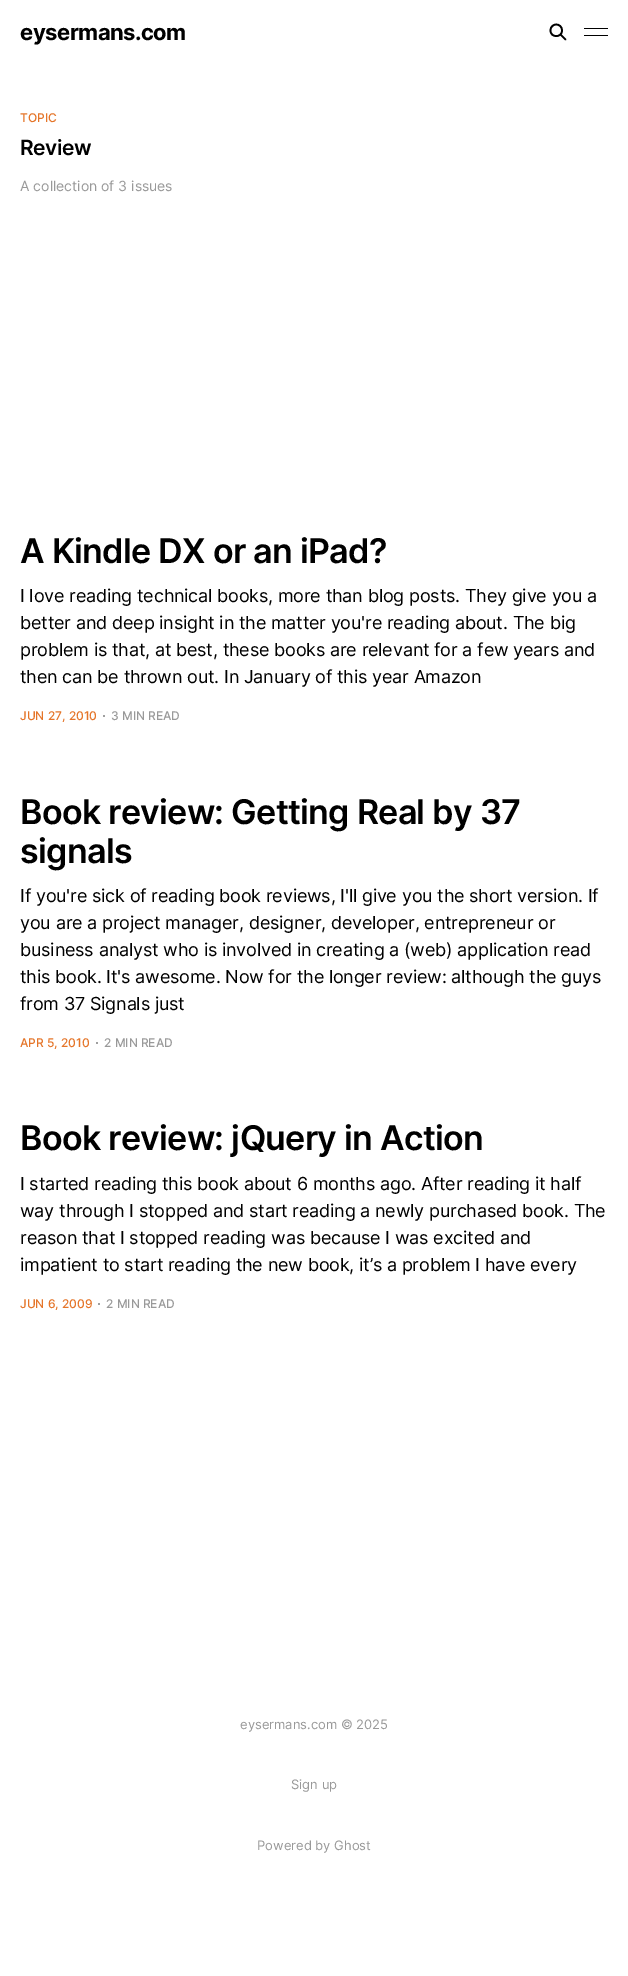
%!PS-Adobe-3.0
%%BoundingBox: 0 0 628 1976
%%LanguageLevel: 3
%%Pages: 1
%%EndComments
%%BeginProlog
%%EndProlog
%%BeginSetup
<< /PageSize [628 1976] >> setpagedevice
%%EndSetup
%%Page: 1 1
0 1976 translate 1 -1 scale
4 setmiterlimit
1 setgray
0 0 628 1976 rectfill
0 setgray
1.7 setlinewidth
1 setlinecap
1 setlinejoin
newpath 565.5 39.5 moveto 560.5 34.5 lineto 562 30.5 moveto 562 38 550.5 38 550.5 30.5 curveto 550.5 22.5 562 22.5 562 30.5 curveto closepath stroke
584 28 24 1 rectfill
584 35 24 1 rectfill
0.6 setgray
newpath 104 716 1 0 360 arc closepath fill
newpath 97 1043 1 0 360 arc closepath fill
newpath 99 1304 1 0 360 arc closepath fill
/Inter-Bold [22 0 0 -22 0 0] selectfont
0 setgray
20 40 moveto -0.5 0 (eysermans.com) ashow
/Inter-Medium [12 0 0 -12 0 0] selectfont
0.898 0.459 0.161 setrgbcolor
20 122 moveto (TOPIC) show
/Inter-SemiBold [21 0 0 -21 0 0] selectfont
0 setgray
20 155 moveto -0.5 0 (Review) ashow
/Inter-Regular [14 0 0 -14 0 0] selectfont
0.6 setgray
20 191 moveto (A collection of 3 issues) show
/Inter-SemiBold [34 0 0 -34 0 0] selectfont
0 setgray
20 563 moveto -0.7 0 (A Kindle DX or an iPad?) ashow
/Inter-Regular [18 0 0 -18 0 0] selectfont
20 602 moveto -0.18 0 (I love reading technical books, more than blog posts. They give you a) ashow
20 629 moveto -0.18 0 (better and deep insight in the matter you're reading about. The big) ashow
20 656 moveto -0.18 0 (problem is that, at best, these books are relevant for a few years and) ashow
20 683 moveto -0.18 0 (then can be thrown out. In January of this year Amazon) ashow
/Inter-Medium [12 0 0 -12 0 0] selectfont
0.898 0.459 0.161 setrgbcolor
20 720 moveto (JUN 27, 2010) show
0.6 setgray
111 720 moveto (3 MIN READ) show
/Inter-SemiBold [34 0 0 -34 0 0] selectfont
0 setgray
20 824 moveto -0.7 0 (Book review: Getting Real by 37) ashow
20 863 moveto -0.7 0 (signals) ashow
/Inter-Regular [18 0 0 -18 0 0] selectfont
20 902 moveto -0.18 0 (If you're sick of reading book reviews, I'll give you the short version. If) ashow
20 929 moveto -0.18 0 (you are a project manager, designer, developer, entrepreneur or) ashow
20 956 moveto -0.18 0 (business analyst who is involved in creating a \(web\) application read) ashow
20 983 moveto -0.18 0 (this book. It's awesome. Now for the longer review: although the guys) ashow
20 1010 moveto -0.18 0 (from 37 Signals just) ashow
/Inter-Medium [12 0 0 -12 0 0] selectfont
0.898 0.459 0.161 setrgbcolor
20 1047 moveto (APR 5, 2010) show
0.6 setgray
104 1047 moveto (2 MIN READ) show
/Inter-SemiBold [34 0 0 -34 0 0] selectfont
0 setgray
20 1150 moveto -0.7 0 (Book review: jQuery in Action) ashow
/Inter-Regular [18 0 0 -18 0 0] selectfont
20 1190 moveto -0.18 0 (I started reading this book about 6 months ago. After reading it half) ashow
20 1217 moveto -0.18 0 (way through I stopped and start reading a newly purchased book. The) ashow
20 1244 moveto -0.18 0 (reason that I stopped reading was because I was excited and) ashow
20 1271 moveto -0.18 0 (impatient to start reading the new book, it’s a problem I have every) ashow
/Inter-Medium [12 0 0 -12 0 0] selectfont
0.898 0.459 0.161 setrgbcolor
20 1308 moveto (JUN 6, 2009) show
0.6 setgray
106 1308 moveto (2 MIN READ) show
/Inter-Regular [13 0 0 -13 0 0] selectfont
240 1729 moveto (eysermans.com © 2025) show
291 1789 moveto (Sign up) show
257 1850 moveto (Powered by Ghost) show
showpage
%%EOF
